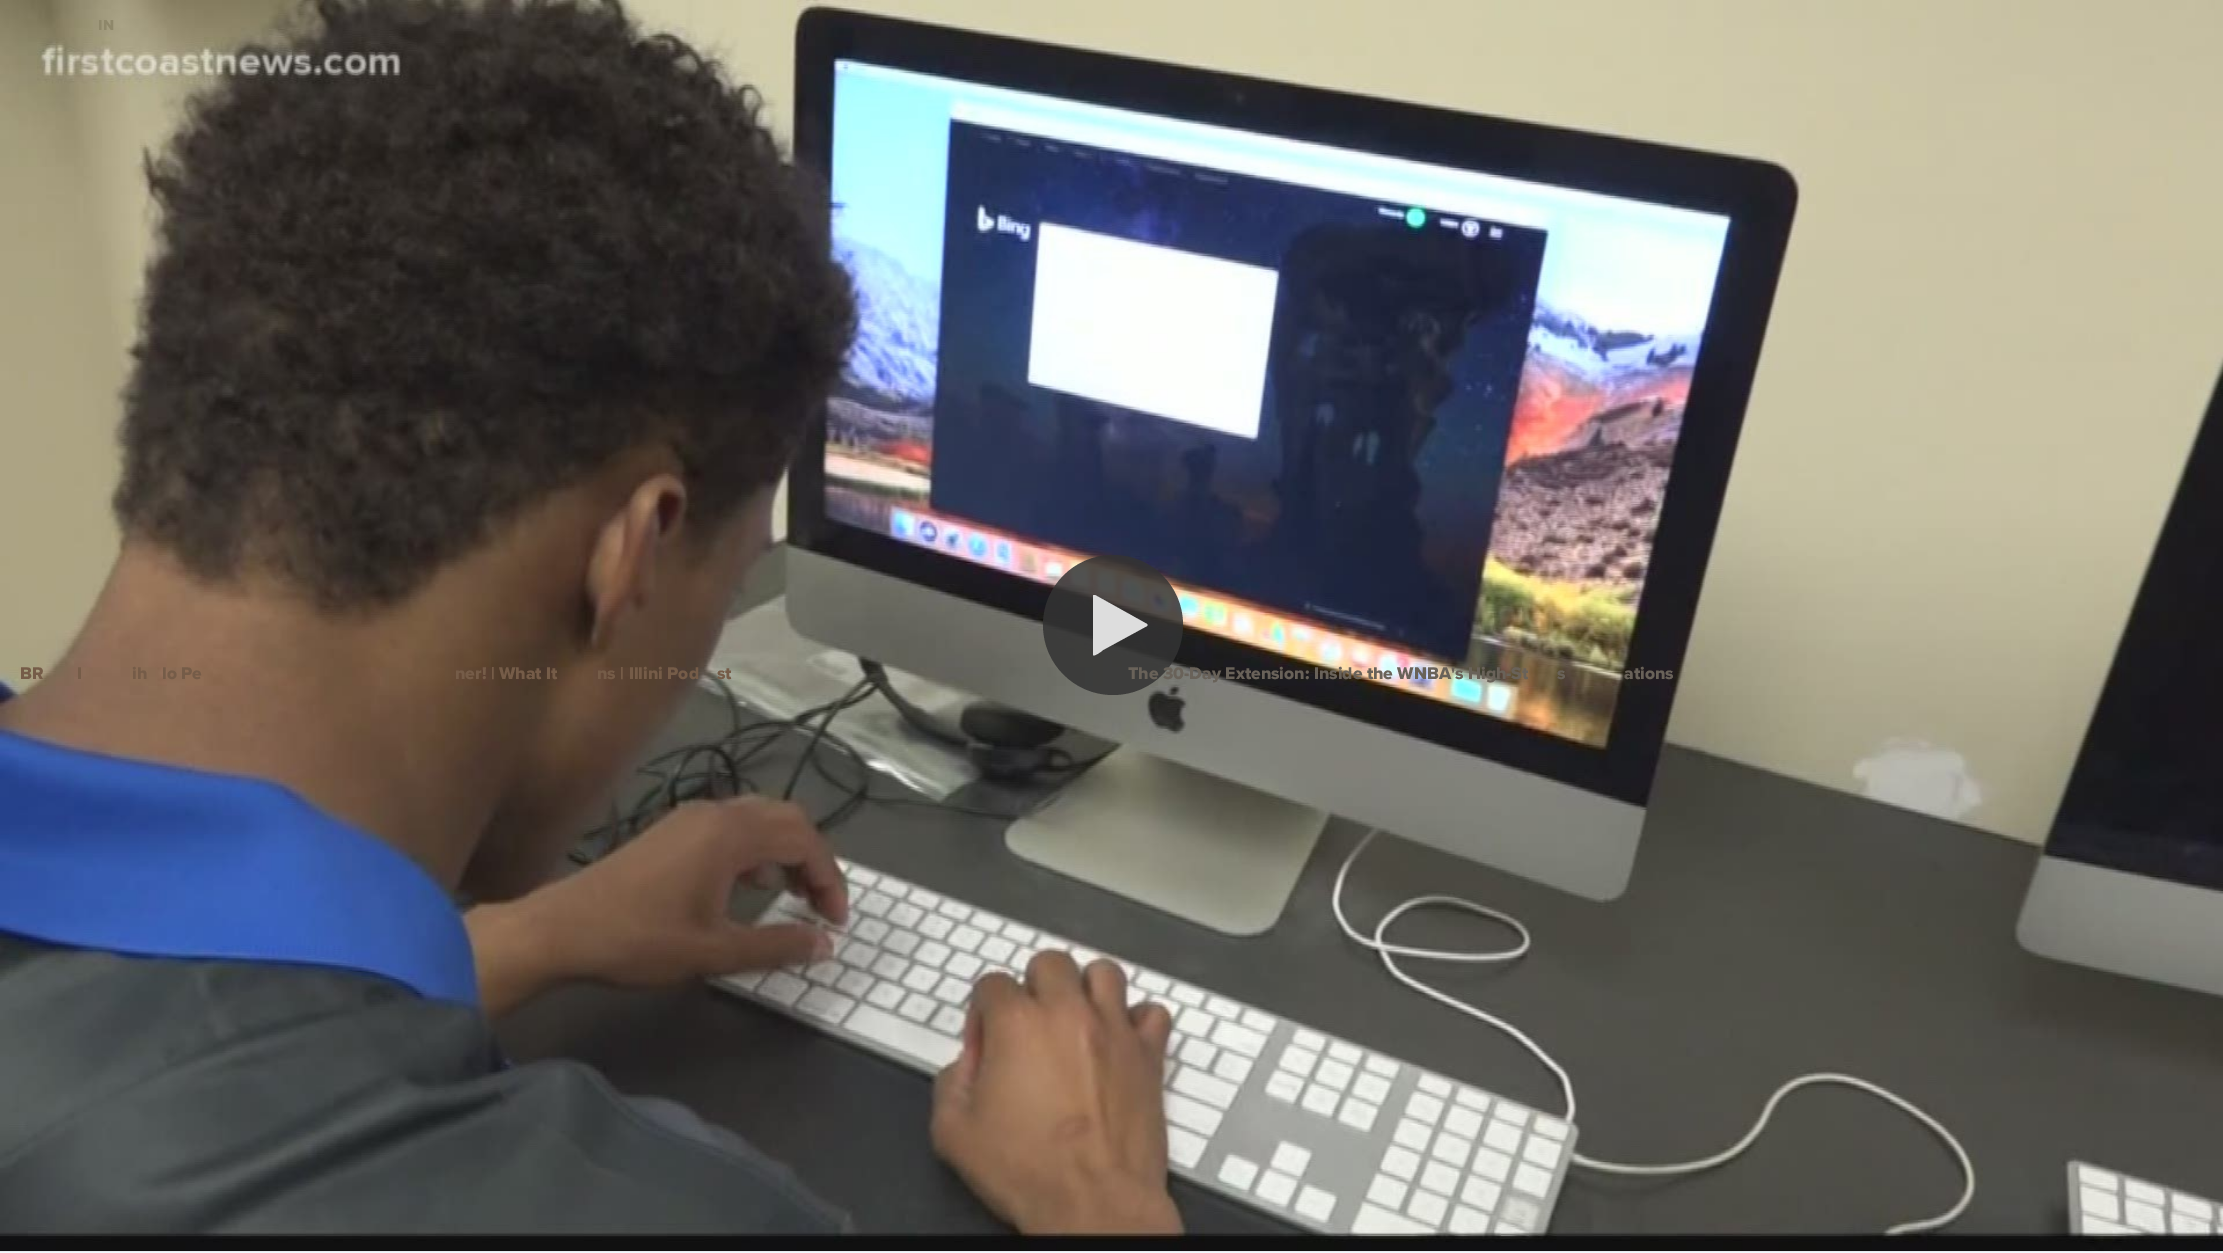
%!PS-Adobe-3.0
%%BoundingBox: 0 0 2223 1253
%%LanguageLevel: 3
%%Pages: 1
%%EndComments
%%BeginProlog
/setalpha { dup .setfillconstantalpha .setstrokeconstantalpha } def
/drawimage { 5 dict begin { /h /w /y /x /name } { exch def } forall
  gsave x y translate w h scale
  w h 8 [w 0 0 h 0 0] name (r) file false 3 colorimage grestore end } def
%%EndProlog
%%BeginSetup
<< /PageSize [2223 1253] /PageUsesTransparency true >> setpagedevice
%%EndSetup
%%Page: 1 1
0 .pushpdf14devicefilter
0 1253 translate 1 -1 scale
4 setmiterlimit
0.953 0.973 0.988 setrgbcolor
0 0 2223 1253 rectfill
(images/1.raw) 0 0 2223 1252 drawimage
0.85 setalpha
0.2 setgray
newpath 1113 625 70 0 360 arc closepath fill
1 setalpha
0.867 setgray
newpath 1147 626 moveto 1103 650 lineto 1102 651 1094 657 1093 655 curveto 1093 596 lineto 1093 595 1094 595 1095 595 curveto 1147 624 lineto 1148 625 1147 626 1147 626 curveto closepath fill
/ProximaNova-ExtraBold [15 0 0 -15 0 0] selectfont
0.557 0.529 0.416 setrgbcolor
98 30 moveto 1 0 (IN) ashow
/ProximaNova-ExtraBold [17.5 0 0 -17.5 0 0] selectfont
0.459 0.361 0.282 setrgbcolor
20 679 moveto (BR) show
77 679 moveto (I) show
132 679 moveto (ih) show
162 679 moveto (lo Pe) show
455 679 moveto (ner! | What It) show
597 679 moveto (ns | Illini Pod) show
717 679 moveto (st) show
gsave
1128 661 1076 25 rectclip
0.412 0.384 0.349 setrgbcolor
1128 679 moveto (The 30-Day Extension: Inside the WNBA's High-St) show
grestore
0.412 0.384 0.349 setrgbcolor
1557 679 moveto (s) show
1624 679 moveto (ations) show
.poppdf14devicefilter showpage
%%EOF
